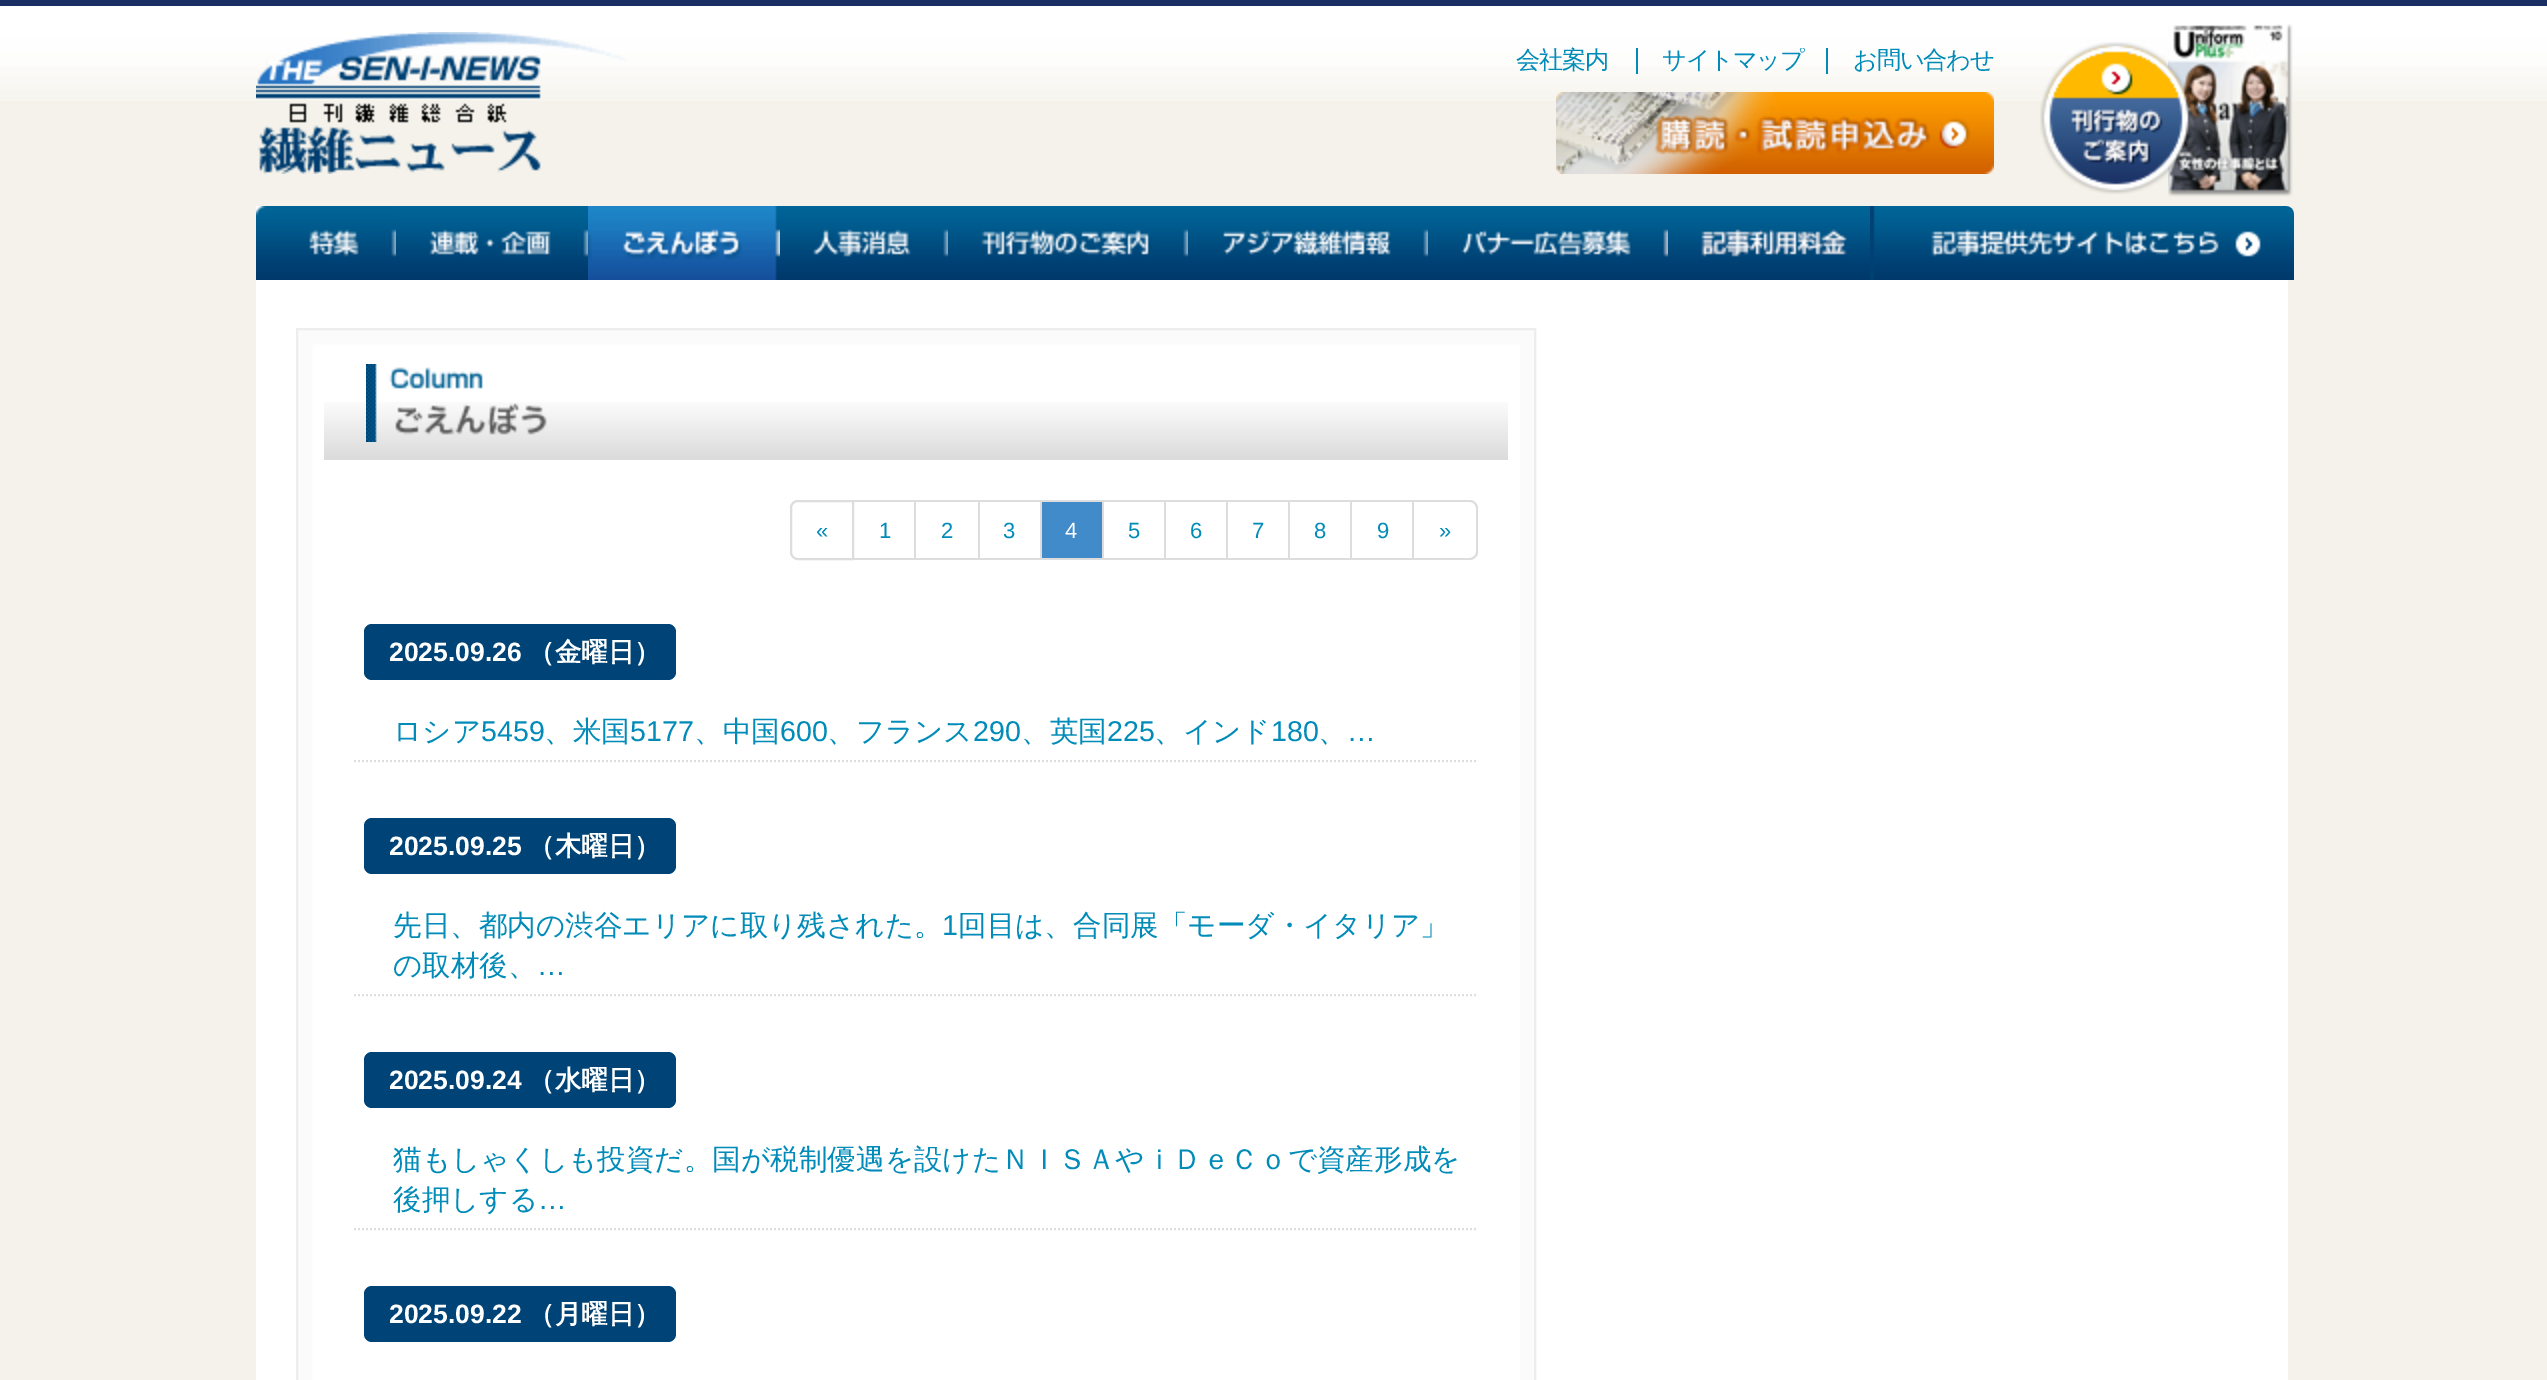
%!PS-Adobe-3.0
%%BoundingBox: 0 0 2547 1380
%%LanguageLevel: 3
%%Pages: 1
%%EndComments
%%BeginProlog
/rrect { 5 dict begin { /r /h /w /y /x } { exch def } forall
  x r add y moveto x w add y 2 copy h add r arct x w add y h add x 1 index r arct
  x y h add x y r arct x y 2 copy exch w add exch r arct closepath end } def
/drawimage { 5 dict begin { /h /w /y /x /name } { exch def } forall
  gsave x y translate w h scale
  w h 8 [w 0 0 h 0 0] name (r) file false 3 colorimage grestore end } def
%%EndProlog
%%BeginSetup
<< /PageSize [2547 1380] >> setpagedevice
%%EndSetup
%%Page: 1 1
0 1380 translate 1 -1 scale
4 setmiterlimit
0.957 0.949 0.918 setrgbcolor
0 0 2547 1380 rectfill
(images/1.raw) 0 6 2547 95 drawimage
0.098 0.184 0.392 setrgbcolor
0 0 2547 6 rectfill
(images/2.raw) 256 32 370 142 drawimage
0 0.545 0.725 setrgbcolor
1636 48 2 26 rectfill
1826 48 2 26 rectfill
(images/4.raw) 2168 24 125 173 drawimage
(images/3.raw) 2040 42 152 152 drawimage
(images/5.raw) 1556 92 438 82 drawimage
(images/6.raw) 256 206 2038 74 drawimage
(images/7.raw) 256 206 140 51 drawimage
(images/8.raw) 429 229 159 28 drawimage
(images/9.raw) 588 206 192 74 drawimage
(images/10.raw) 813 229 135 28 drawimage
(images/11.raw) 981 229 207 28 drawimage
(images/12.raw) 1223 229 205 28 drawimage
(images/13.raw) 1461 229 207 28 drawimage
(images/14.raw) 1701 229 146 28 drawimage
(images/15.raw) 1870 206 391 74 drawimage
1 setgray
256 280 2032 1100 rectfill
0.984 setgray
16 setlinewidth
304 336 1224 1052 rectstroke
0.929 setgray
2 setlinewidth
297 329 1238 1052 rectstroke
(images/16.raw) 324 402 1184 58 drawimage
(images/17.raw) 366 364 181 78 drawimage
0.867 setgray
newpath 798 501 moveto 853 501 lineto 853 559 lineto 798 559 lineto 794 559 791 556 791 552 curveto 791 508 lineto 791 504 794 501 798 501 curveto closepath stroke
854 500 560 2 rectfill
914 500 2 60 rectfill
854 558 62 2 rectfill
978 500 2 60 rectfill
916 558 64 2 rectfill
1040 500 2 60 rectfill
980 558 62 2 rectfill
0.259 0.545 0.792 setrgbcolor
1042 502 60 56 rectfill
0.867 setgray
1102 500 2 60 rectfill
1042 558 62 2 rectfill
1164 500 2 60 rectfill
1104 558 62 2 rectfill
1226 500 2 60 rectfill
1166 558 62 2 rectfill
1288 500 2 60 rectfill
1228 558 62 2 rectfill
1350 500 2 60 rectfill
1290 558 62 2 rectfill
1412 500 2 60 rectfill
1352 558 62 2 rectfill
newpath 1414 500 moveto 1470 500 lineto 1474 500 1478 504 1478 508 curveto 1478 552 lineto 1478 556 1474 560 1470 560 curveto 1414 560 lineto closepath 1414 502 moveto 1470 502 lineto 1473 502 1476 505 1476 508 curveto 1476 552 lineto 1476 555 1473 558 1470 558 curveto 1414 558 lineto closepath eofill
0 0.267 0.467 setrgbcolor
364 624 312 56 8 rrect fill
0.875 0.871 0.871 setrgbcolor
[2 2] 0 setdash
newpath 354 761 moveto 1478 761 lineto stroke
0 0.267 0.467 setrgbcolor
364 818 312 56 8 rrect fill
0.875 0.871 0.871 setrgbcolor
newpath 354 995 moveto 1478 995 lineto stroke
0 0.267 0.467 setrgbcolor
364 1052 312 56 8 rrect fill
0.875 0.871 0.871 setrgbcolor
newpath 354 1229 moveto 1478 1229 lineto stroke
0 0.267 0.467 setrgbcolor
364 1286 312 56 8 rrect fill
/WenQuanYiZenHei-Medium [24.25 0 0 -24.25 0 0] selectfont
0 0.545 0.725 setrgbcolor
1516 68 moveto -1.25 0 (会社案内) ashow
gsave
1492 48 526 26 rectclip
1662 68 moveto -1.25 0 (サイトマップ) ashow
grestore
1853 68 moveto -1.25 0 (お問い合わせ) ashow
/LiberationSans-Regular [22 0 0 -22 0 0] selectfont
816 538 moveto («) show
879 538 moveto (1) show
941 538 moveto (2) show
1003 538 moveto (3) show
1 setgray
1065 538 moveto (4) show
0 0.545 0.725 setrgbcolor
1128 538 moveto (5) show
1190 538 moveto (6) show
1252 538 moveto (7) show
1314 538 moveto (8) show
1377 538 moveto (9) show
1439 538 moveto (») show
/LiberationSans-Bold [26.5 0 0 -26.5 0 0] selectfont
1 setgray
389 661 moveto (2025.09.26) show
/WenQuanYiZenHei-Bold [26.5 0 0 -26.5 0 0] selectfont
528 661 moveto (（金曜日）) show
/WenQuanYiZenHei-Medium [28.6 0 0 -28.6 0 0] selectfont
0 0.545 0.725 setrgbcolor
393 741 moveto (ロシア) show
/LiberationSans-Regular [28.6 0 0 -28.6 0 0] selectfont
481 741 moveto (5459) show
/WenQuanYiZenHei-Medium [28.6 0 0 -28.6 0 0] selectfont
544 741 moveto (、米国) show
/LiberationSans-Regular [28.6 0 0 -28.6 0 0] selectfont
630 741 moveto (5177) show
/WenQuanYiZenHei-Medium [28.6 0 0 -28.6 0 0] selectfont
694 741 moveto (、中国) show
/LiberationSans-Regular [28.6 0 0 -28.6 0 0] selectfont
780 741 moveto (600) show
/WenQuanYiZenHei-Medium [28.6 0 0 -28.6 0 0] selectfont
827 741 moveto (、フランス) show
/LiberationSans-Regular [28.6 0 0 -28.6 0 0] selectfont
973 741 moveto (290) show
/WenQuanYiZenHei-Medium [28.6 0 0 -28.6 0 0] selectfont
1021 741 moveto (、英国) show
/LiberationSans-Regular [28.6 0 0 -28.6 0 0] selectfont
1107 741 moveto (225) show
/WenQuanYiZenHei-Medium [28.6 0 0 -28.6 0 0] selectfont
1154 741 moveto (、インド) show
/LiberationSans-Regular [28.6 0 0 -28.6 0 0] selectfont
1271 741 moveto (180) show
/WenQuanYiZenHei-Medium [28.6 0 0 -28.6 0 0] selectfont
1318 741 moveto (、) show
/LiberationSans-Regular [28.6 0 0 -28.6 0 0] selectfont
1347 741 moveto (…) show
/LiberationSans-Bold [26.5 0 0 -26.5 0 0] selectfont
1 setgray
389 855 moveto (2025.09.25) show
/WenQuanYiZenHei-Bold [26.5 0 0 -26.5 0 0] selectfont
528 855 moveto (（木曜日）) show
/WenQuanYiZenHei-Medium [28.6 0 0 -28.6 0 0] selectfont
0 0.545 0.725 setrgbcolor
393 935 moveto (先日、都内の渋谷エリアに取り残された。) show
/LiberationSans-Regular [28.6 0 0 -28.6 0 0] selectfont
942 935 moveto (1) show
/WenQuanYiZenHei-Medium [28.6 0 0 -28.6 0 0] selectfont
958 935 moveto (回目は、合同展「モーダ・イタリア」) show
393 975 moveto (の取材後、) show
/LiberationSans-Regular [28.6 0 0 -28.6 0 0] selectfont
537 975 moveto (…) show
/LiberationSans-Bold [26.5 0 0 -26.5 0 0] selectfont
1 setgray
389 1089 moveto (2025.09.24) show
/WenQuanYiZenHei-Bold [26.5 0 0 -26.5 0 0] selectfont
528 1089 moveto (（水曜日）) show
/WenQuanYiZenHei-Medium [28.6 0 0 -28.6 0 0] selectfont
0 0.545 0.725 setrgbcolor
393 1169 moveto (猫もしゃくしも投資だ。国が税制優遇を設けたＮＩＳＡやｉＤｅＣｏで資産形成を) show
393 1209 moveto (後押しする) show
/LiberationSans-Regular [28.6 0 0 -28.6 0 0] selectfont
538 1209 moveto (…) show
/LiberationSans-Bold [26.5 0 0 -26.5 0 0] selectfont
1 setgray
389 1323 moveto (2025.09.22) show
/WenQuanYiZenHei-Bold [26.5 0 0 -26.5 0 0] selectfont
528 1323 moveto (（月曜日）) show
showpage
%%EOF
